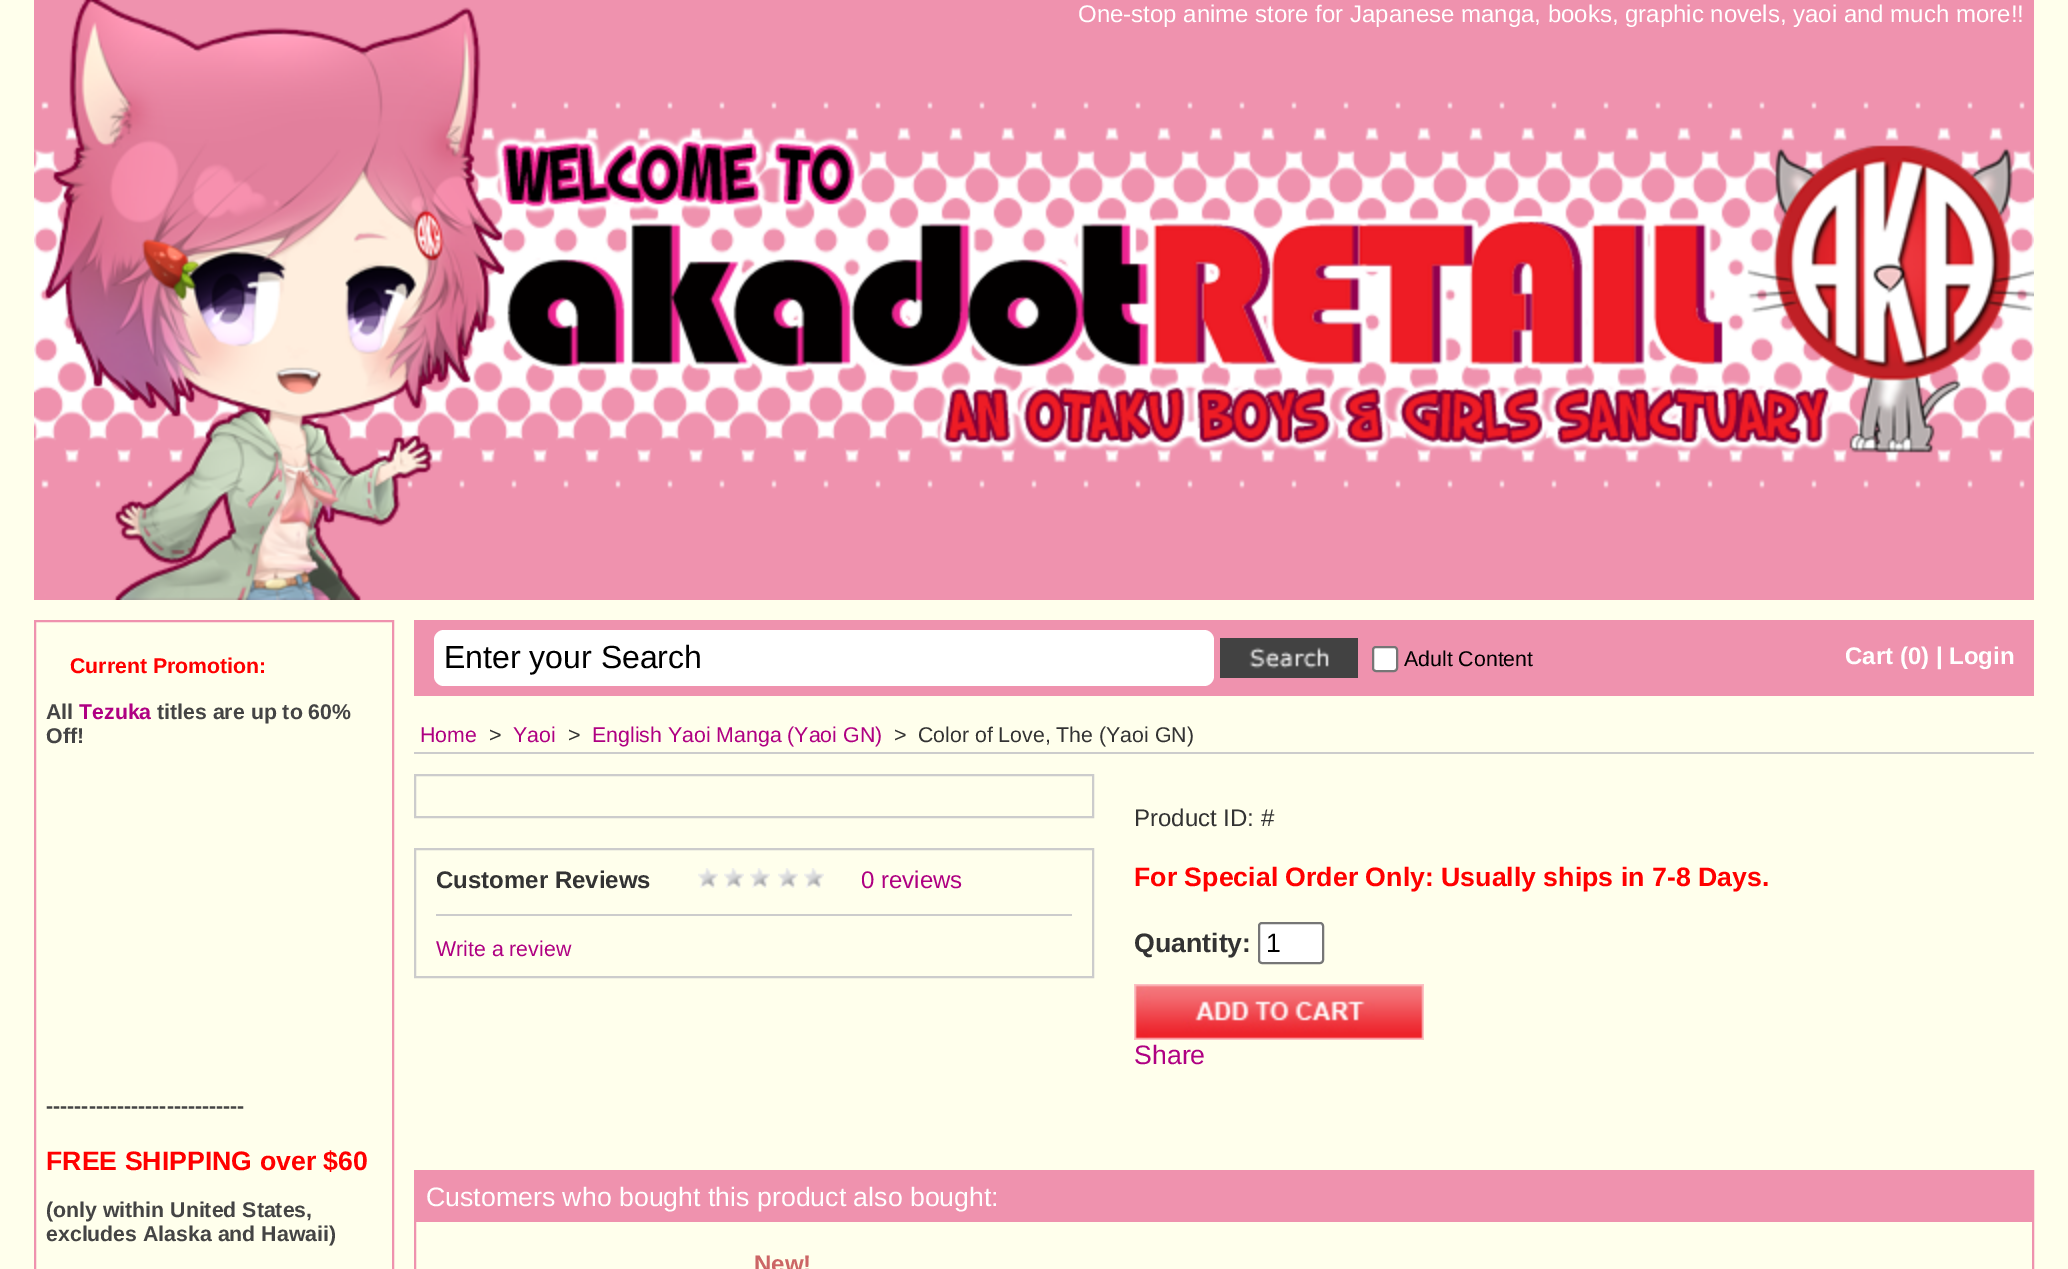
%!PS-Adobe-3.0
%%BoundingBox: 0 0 2068 1269
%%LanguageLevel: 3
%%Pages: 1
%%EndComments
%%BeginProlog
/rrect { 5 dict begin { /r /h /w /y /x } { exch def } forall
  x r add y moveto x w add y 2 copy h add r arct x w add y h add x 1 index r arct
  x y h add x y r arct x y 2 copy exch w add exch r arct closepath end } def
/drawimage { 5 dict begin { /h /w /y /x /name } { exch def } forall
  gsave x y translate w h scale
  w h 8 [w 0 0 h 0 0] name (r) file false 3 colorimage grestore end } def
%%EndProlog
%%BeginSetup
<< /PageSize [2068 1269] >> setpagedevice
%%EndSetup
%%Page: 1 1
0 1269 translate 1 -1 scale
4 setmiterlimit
1 1 0.925 setrgbcolor
0 0 2068 1269 rectfill
(images/1.raw) 34 0 2000 600 drawimage
0.937 0.573 0.682 setrgbcolor
2 setlinewidth
35 621 358 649 rectstroke
414 620 1620 76 rectfill
1 setgray
434 630 780 56 10 rrect fill
(images/2.raw) 1220 638 138 40 drawimage
1373 647 24 24 3 rrect gsave fill grestore
0.463 setgray
stroke
0.8 setgray
414 752 1620 2 rectfill
415 775 678 42 rectstroke
415 849 678 128 rectstroke
(images/3.raw) 698 868 20 20 drawimage
(images/3.raw) 724 868 20 20 drawimage
(images/3.raw) 750 868 20 20 drawimage
(images/3.raw) 778 868 20 20 drawimage
(images/3.raw) 804 868 20 20 drawimage
436 914 636 2 rectfill
1 setgray
1259 923 64 40 3 rrect gsave fill grestore
0.463 setgray
stroke
(images/4.raw) 1134 984 290 56 drawimage
0.937 0.573 0.682 setrgbcolor
415 1171 1618 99 rectstroke
416 1172 1616 50 rectfill
/LiberationSans-Regular [24 0 0 -24 0 0] selectfont
1 setgray
1078 22 moveto (One-stop anime store for Japanese manga, books, graphic novels, yaoi and much more!!) show
/LiberationSans-Bold [21.3 0 0 -21.3 0 0] selectfont
1 0 0 setrgbcolor
70 673 moveto (Current Promotion:) show
0.267 setgray
46 719 moveto (All) show
0.686 0 0.51 setrgbcolor
79 719 moveto (Tezuka) show
0.267 setgray
157 719 moveto (titles are up to 60%) show
46 743 moveto (Off!) show
46 1113 moveto (----------------------------) show
/LiberationSans-Bold [26.7 0 0 -26.7 0 0] selectfont
1 0 0 setrgbcolor
46 1170 moveto (FREE SHIPPING over $60) show
/LiberationSans-Bold [21.3 0 0 -21.3 0 0] selectfont
0.267 setgray
46 1217 moveto (\(only within United States,) show
46 1241 moveto (excludes Alaska and Hawaii\)) show
/LiberationSans-Regular [32 0 0 -32 0 0] selectfont
0 setgray
444 668 moveto (Enter your Search) show
/LiberationSans-Regular [21.3 0 0 -21.3 0 0] selectfont
1404 666 moveto (Adult Content) show
/LiberationSans-Bold [24 0 0 -24 0 0] selectfont
1 setgray
1845 664 moveto (Cart \(0\) | Login) show
/LiberationSans-Regular [21.3 0 0 -21.3 0 0] selectfont
0.686 0 0.51 setrgbcolor
420 742 moveto (Home) show
0.2 setgray
489 742 moveto (>) show
0.686 0 0.51 setrgbcolor
513 742 moveto (Yaoi) show
0.2 setgray
568 742 moveto (>) show
0.686 0 0.51 setrgbcolor
592 742 moveto (English Yaoi Manga \(Yaoi GN\)) show
0.2 setgray
894 742 moveto (>) show
918 742 moveto (Color of Love, The \(Yaoi GN\)) show
/LiberationSans-Bold [24 0 0 -24 0 0] selectfont
436 888 moveto (Customer Reviews) show
/LiberationSans-Regular [24 0 0 -24 0 0] selectfont
0.686 0 0.51 setrgbcolor
861 888 moveto (0 reviews) show
/LiberationSans-Regular [21.3 0 0 -21.3 0 0] selectfont
436 956 moveto (Write a review) show
/LiberationSans-Regular [24 0 0 -24 0 0] selectfont
0.2 setgray
1134 826 moveto (Product ID: #) show
/LiberationSans-Bold [26.7 0 0 -26.7 0 0] selectfont
1 0 0 setrgbcolor
1134 886 moveto (For Special Order Only: Usually ships in 7-8 Days.) show
0.2 setgray
1134 952 moveto (Quantity:) show
/LiberationSans-Regular [26.7 0 0 -26.7 0 0] selectfont
0 setgray
1266 952 moveto (1) show
0.686 0 0.51 setrgbcolor
1134 1064 moveto (Share) show
1 setgray
426 1206 moveto (Customers who bought this product also bought:) show
/LiberationSans-Bold [24 0 0 -24 0 0] selectfont
0.8 0.4 0.4 setrgbcolor
754 1272 moveto (New!) show
showpage
%%EOF
